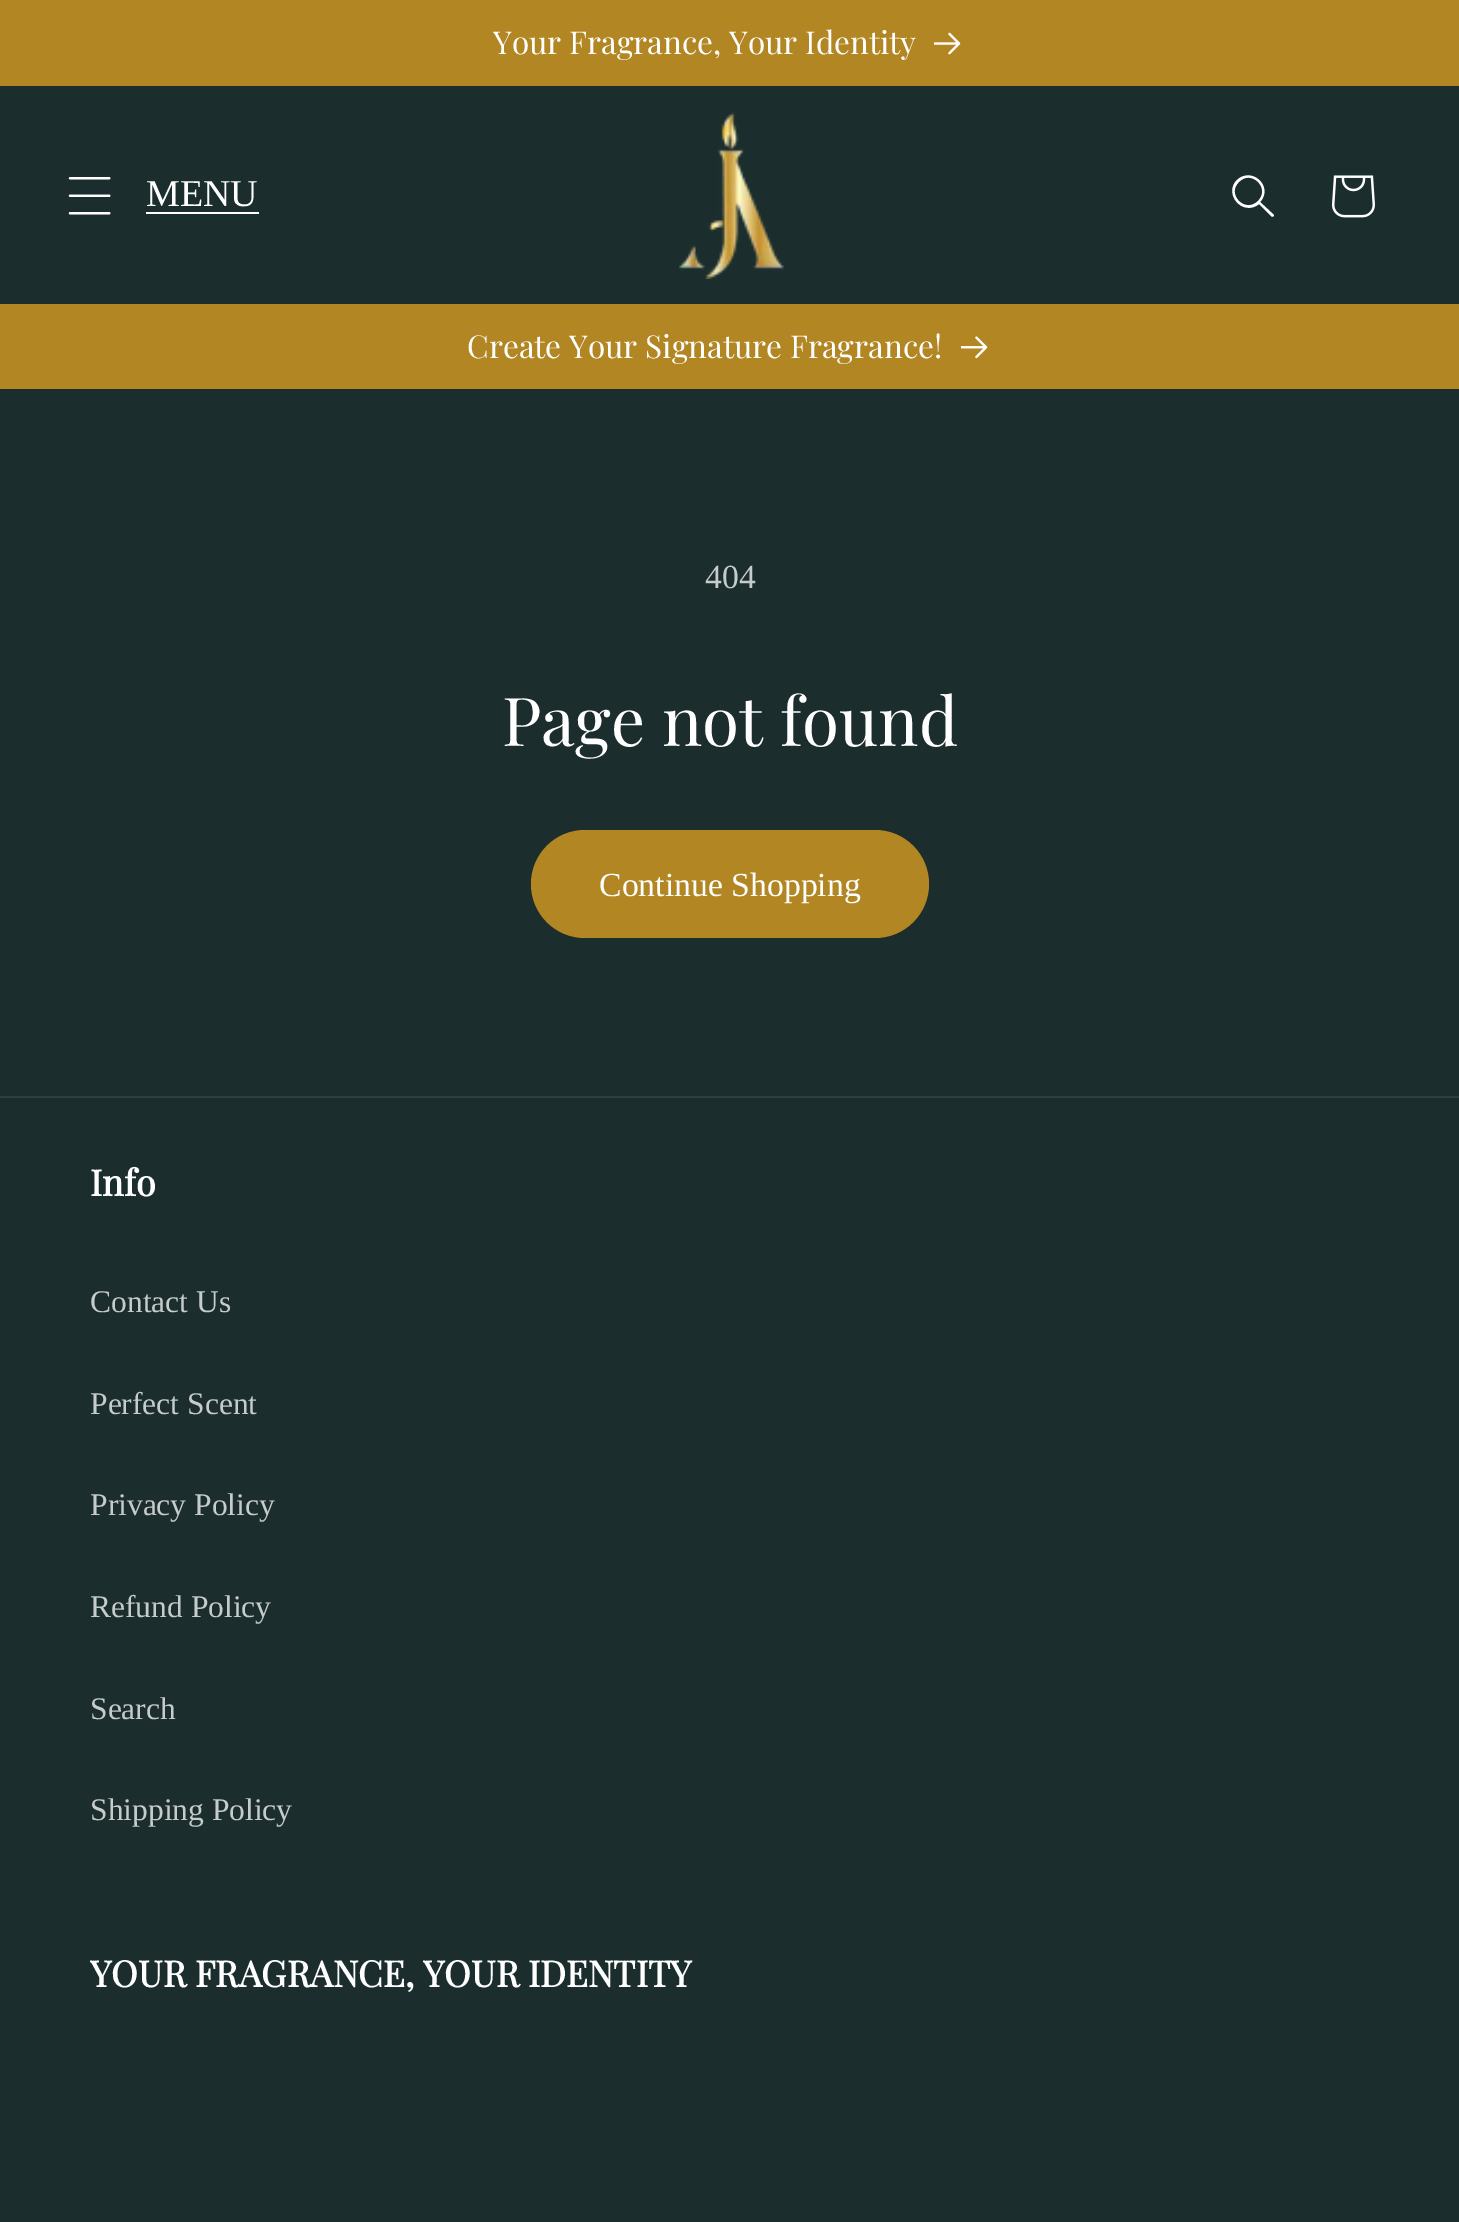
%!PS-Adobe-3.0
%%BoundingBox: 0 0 1459 2222
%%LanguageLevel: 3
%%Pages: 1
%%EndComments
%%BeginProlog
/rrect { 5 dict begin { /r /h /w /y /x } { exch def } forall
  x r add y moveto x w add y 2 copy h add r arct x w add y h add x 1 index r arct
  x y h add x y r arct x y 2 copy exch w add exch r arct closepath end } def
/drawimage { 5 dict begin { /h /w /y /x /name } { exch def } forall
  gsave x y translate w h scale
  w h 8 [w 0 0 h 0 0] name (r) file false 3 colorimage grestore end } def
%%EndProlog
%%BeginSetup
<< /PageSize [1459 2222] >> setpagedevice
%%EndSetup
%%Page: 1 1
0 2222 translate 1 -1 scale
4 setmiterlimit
0.106 0.18 0.176 setrgbcolor
0 0 1459 2222 rectfill
0.702 0.525 0.141 setrgbcolor
0 0 1459 86 rectfill
(images/1.raw) 934 32 27 23 drawimage
(images/2.raw) 68 177 43 38 drawimage
1 setgray
146 212 113 2 rectfill
(images/3.raw) 679 112 105 167 drawimage
newpath 1258 201 moveto 1245 214 1226 194 1239 182 curveto 1251 169 1271 188 1258 201 curveto 1259 204 moveto 1243 217 1223 194 1237 180 curveto 1252 166 1274 187 1260 202 curveto 1274 215 lineto 1274 217 1272 217 1271 216 curveto closepath eofill
(images/4.raw) 1332 175 43 43 drawimage
0.702 0.525 0.141 setrgbcolor
0 304 1459 85 rectfill
(images/5.raw) 961 336 27 23 drawimage
531 830 398 108 54 rrect fill
0.176 0.247 0.243 setrgbcolor
0 1096 1459 2 rectfill
/PlayfairDisplay-Regular [31.5 0 0 -31.5 0 0] selectfont
1 setgray
493 54 moveto (Your Fragrance, Your Identity) show
/LiberationSerif-Regular [38 0 0 -38 0 0] selectfont
146 206 moveto (MENU) show
/PlayfairDisplay-Regular [31.5 0 0 -31.5 0 0] selectfont
467 358 moveto (Create Your Signature Fragrance!) show
/LiberationSerif-Regular [33.75 0 0 -33.75 0 0] selectfont
0.776 0.796 0.796 setrgbcolor
705 588 moveto (404) show
/PlayfairDisplay-Regular [67.5 0 0 -67.5 0 0] selectfont
1 setgray
502 746 moveto (Page not found) show
/LiberationSerif-Regular [33.75 0 0 -33.75 0 0] selectfont
599 896 moveto (Continue Shopping) show
/PlayfairDisplay-Bold [36 0 0 -36 0 0] selectfont
90 1196 moveto (Info) show
/LiberationSerif-Regular [31.5 0 0 -31.5 0 0] selectfont
0.776 0.796 0.796 setrgbcolor
90 1312 moveto (Contact Us) show
90 1414 moveto (Perfect Scent) show
90 1515 moveto (Privacy Policy) show
90 1617 moveto (Refund Policy) show
90 1719 moveto (Search) show
90 1820 moveto (Shipping Policy) show
/PlayfairDisplay-Bold [36 0 0 -36 0 0] selectfont
1 setgray
90 1987 moveto (YOUR FRAGRANCE, YOUR IDENTITY) show
showpage
%%EOF
